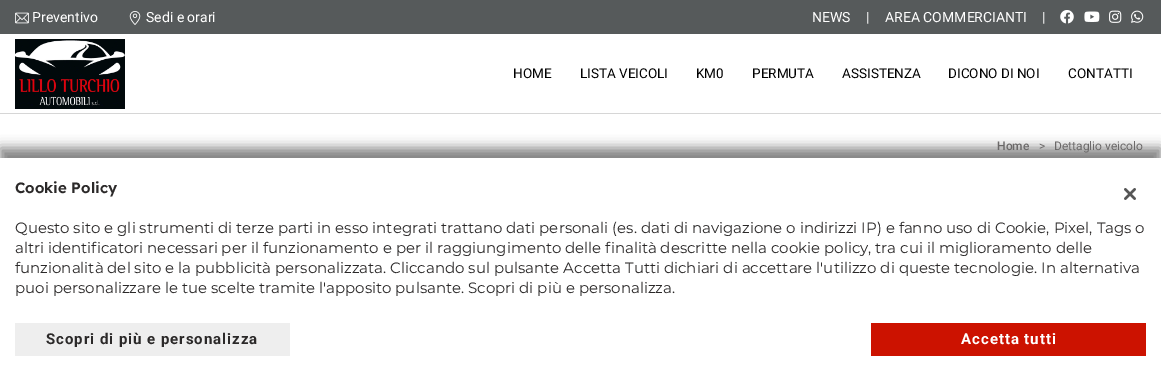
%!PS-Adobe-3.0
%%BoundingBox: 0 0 1161 386
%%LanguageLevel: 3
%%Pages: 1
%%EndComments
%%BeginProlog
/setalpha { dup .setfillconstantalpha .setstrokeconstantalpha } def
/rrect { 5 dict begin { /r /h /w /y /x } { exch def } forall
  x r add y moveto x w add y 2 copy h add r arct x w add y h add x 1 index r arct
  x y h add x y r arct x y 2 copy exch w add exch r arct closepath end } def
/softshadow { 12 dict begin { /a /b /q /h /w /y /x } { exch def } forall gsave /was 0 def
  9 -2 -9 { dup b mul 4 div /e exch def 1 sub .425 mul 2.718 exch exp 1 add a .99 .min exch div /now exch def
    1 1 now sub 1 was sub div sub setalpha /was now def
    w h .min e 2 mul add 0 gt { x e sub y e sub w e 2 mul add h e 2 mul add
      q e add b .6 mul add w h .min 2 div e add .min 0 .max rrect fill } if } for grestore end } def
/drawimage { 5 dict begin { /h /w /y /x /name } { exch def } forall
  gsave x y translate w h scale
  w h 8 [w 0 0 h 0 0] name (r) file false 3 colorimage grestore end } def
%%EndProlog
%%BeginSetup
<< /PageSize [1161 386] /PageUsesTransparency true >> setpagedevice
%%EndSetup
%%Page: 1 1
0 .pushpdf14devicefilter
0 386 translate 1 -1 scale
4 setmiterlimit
1 setgray
0 0 1161 386 rectfill
0.337 0.353 0.357 setrgbcolor
0 0 1161 34 rectfill
(images/1.raw) 15 12 14 12 drawimage
(images/2.raw) 129 11 12 14 drawimage
(images/3.raw) 1060 10 14 14 drawimage
(images/4.raw) 1084 11 16 11 drawimage
(images/5.raw) 1109 10 13 13 drawimage
(images/6.raw) 1131 10 13 13 drawimage
0.839 setgray
0 113 1161 1 rectfill
(images/7.raw) 15 39 110 70 drawimage
0 setgray
0 148 1161 228 0 6 0.5 softshadow
1 setgray
0 158 1161 228 rectfill
0.933 setgray
15 323 275 33 rectfill
0.8 0.071 0 setrgbcolor
871 323 275 33 rectfill
(images/8.raw) 1124 188 12 12 drawimage
/Roboto-Regular [14 0 0 -14 0 0] selectfont
1 setgray
32 22 moveto (Preventivo) show
146 22 moveto (Sedi e orari) show
812 22 moveto (NEWS) show
866 22 moveto (|) show
885 22 moveto (AREA COMMERCIANTI) show
1042 22 moveto (|) show
/Roboto-Regular [13.5 0 0 -13.5 0 0] selectfont
0 setgray
513 78 moveto (HOME) show
580 78 moveto (LISTA VEICOLI) show
696 78 moveto (KM0) show
752 78 moveto (PERMUTA) show
842 78 moveto (ASSISTENZA) show
948 78 moveto (DICONO DI NOI) show
1068 78 moveto (CONTATTI) show
/Roboto-Medium [12 0 0 -12 0 0] selectfont
0.42 0.412 0.412 setrgbcolor
997 150 moveto (Home) show
/Roboto-Regular [12 0 0 -12 0 0] selectfont
1039 150 moveto (>) show
1054 150 moveto (Dettaglio veicolo) show
/Lexend-SemiBold [15 0 0 -15 0 0] selectfont
0.169 0.161 0.161 setrgbcolor
15 193 moveto (Cookie Policy) show
/Montserrat-Regular [15 0 0 -15 0 0] selectfont
15 233 moveto (Questo sito e gli strumenti di terze parti in esso integrati trattano dati personali \(es. dati di navigazione o indirizzi IP\) e fanno uso di Cookie, Pixel, Tags o) show
15 253 moveto (altri identificatori necessari per il funzionamento e per il raggiungimento delle finalità descritte nella cookie policy, tra cui il miglioramento delle) show
15 273 moveto (funzionalità del sito e la pubblicità personalizzata. Cliccando sul pulsante Accetta Tutti dichiari di accettare l'utilizzo di queste tecnologie. In alternativa) show
15 293 moveto (puoi personalizzare le tue scelte tramite l'apposito pulsante. Scopri di più e personalizza.) show
/Roboto-Bold [15 0 0 -15 0 0] selectfont
46 344 moveto 0.95 0 (Scopri di più e personalizza) ashow
1 setgray
961 344 moveto 0.95 0 (Accetta tutti) ashow
.poppdf14devicefilter showpage
%%EOF
